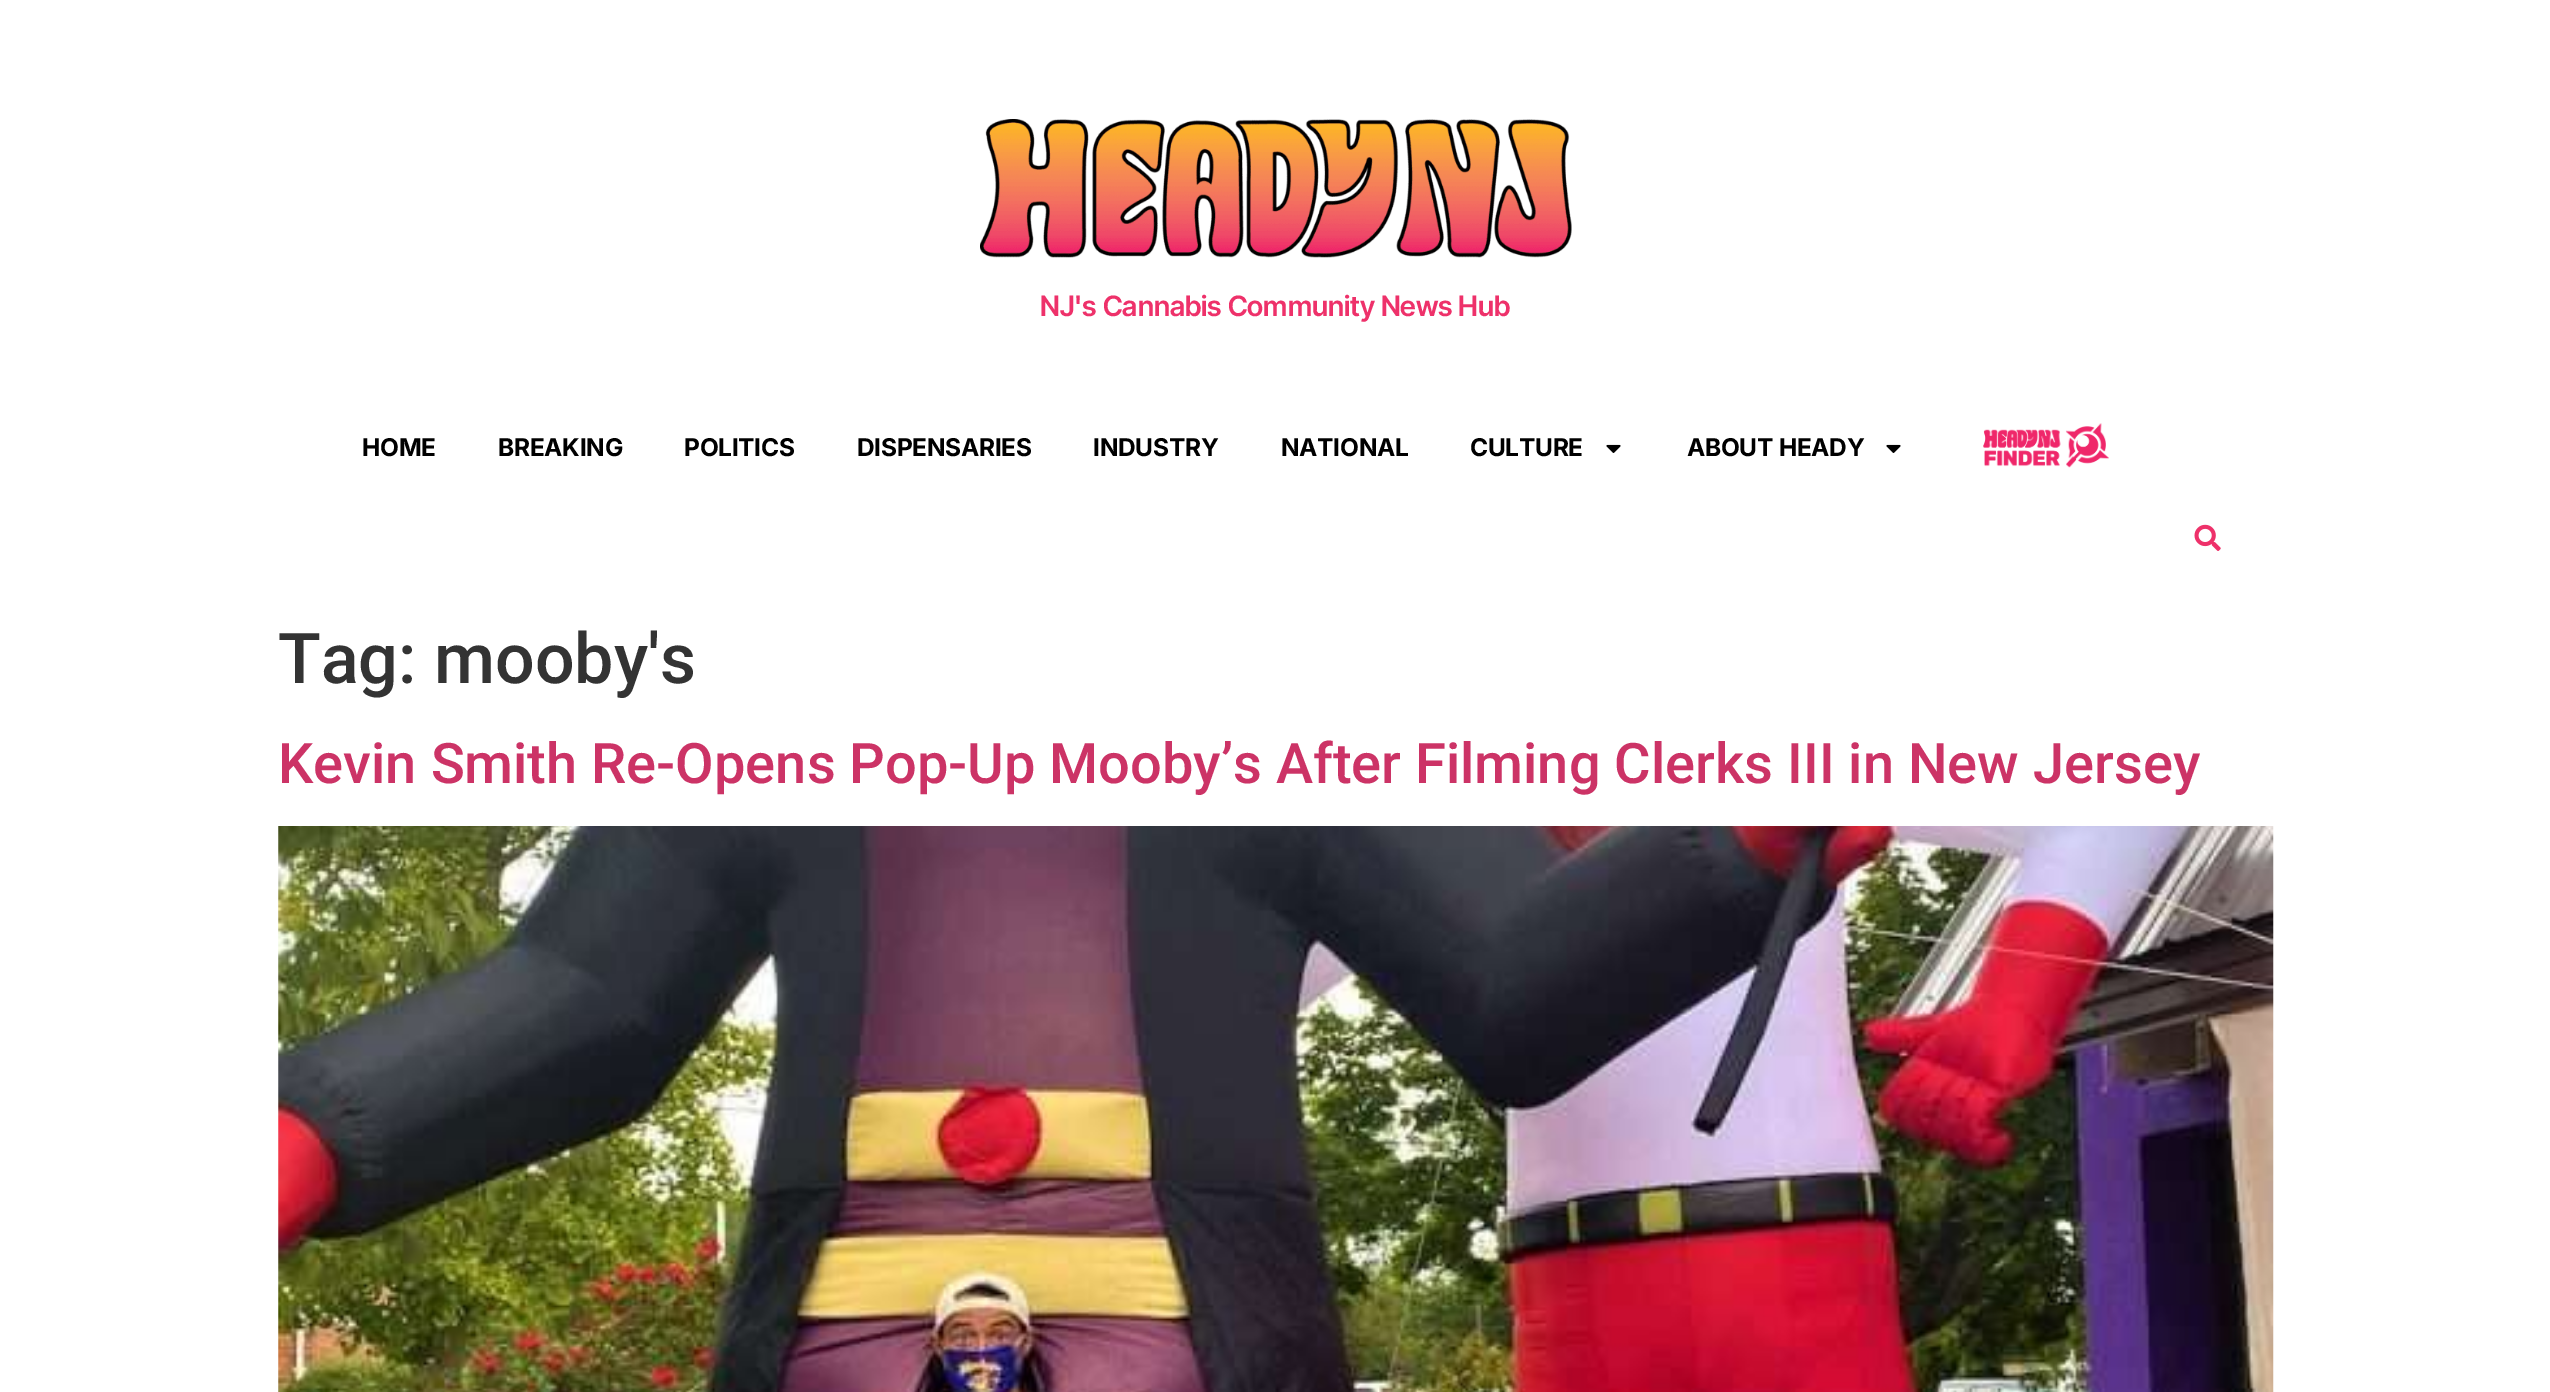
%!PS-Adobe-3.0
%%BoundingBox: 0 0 2550 1392
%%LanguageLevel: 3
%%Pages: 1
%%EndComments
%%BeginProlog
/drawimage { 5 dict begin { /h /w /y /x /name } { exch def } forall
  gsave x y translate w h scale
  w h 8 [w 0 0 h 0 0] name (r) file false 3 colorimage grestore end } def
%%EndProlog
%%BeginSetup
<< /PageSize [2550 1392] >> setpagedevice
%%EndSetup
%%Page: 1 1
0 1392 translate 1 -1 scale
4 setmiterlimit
1 setgray
0 0 2550 1392 rectfill
(images/1.raw) 980 119 592 139 drawimage
(images/2.raw) 1606 444 15 9 drawimage
(images/2.raw) 1886 444 15 9 drawimage
(images/3.raw) 1983 423 126 45 drawimage
(images/4.raw) 2194 524 27 27 drawimage
(images/5.raw) 278 826 1996 566 drawimage
/InterTight-SemiBold [28 0 0 -28 0 0] selectfont
0.933 0.192 0.416 setrgbcolor
1040 316 moveto (NJ's Cannabis Community News Hub) show
/Inter-Bold [24.5 0 0 -24.5 0 0] selectfont
0 setgray
362 456 moveto -0.3 0 (HOME) ashow
498 456 moveto -0.3 0 (BREAKING) ashow
684 456 moveto -0.3 0 (POLITICS) ashow
857 456 moveto -0.3 0 (DISPENSARIES) ashow
1093 456 moveto -0.3 0 (INDUSTRY) ashow
1281 456 moveto -0.3 0 (NATIONAL) ashow
1470 456 moveto -0.3 0 (CULTURE) ashow
1687 456 moveto -0.3 0 (ABOUT HEADY) ashow
/Roboto-Medium [70 0 0 -70 0 0] selectfont
0.2 setgray
278 683 moveto (Tag: mooby's) show
/Roboto-Medium [56 0 0 -56 0 0] selectfont
0.8 0.2 0.4 setrgbcolor
278 783 moveto (Kevin Smith Re-Opens Pop-Up Mooby’s After Filming Clerks III in New Jersey) show
showpage
%%EOF
